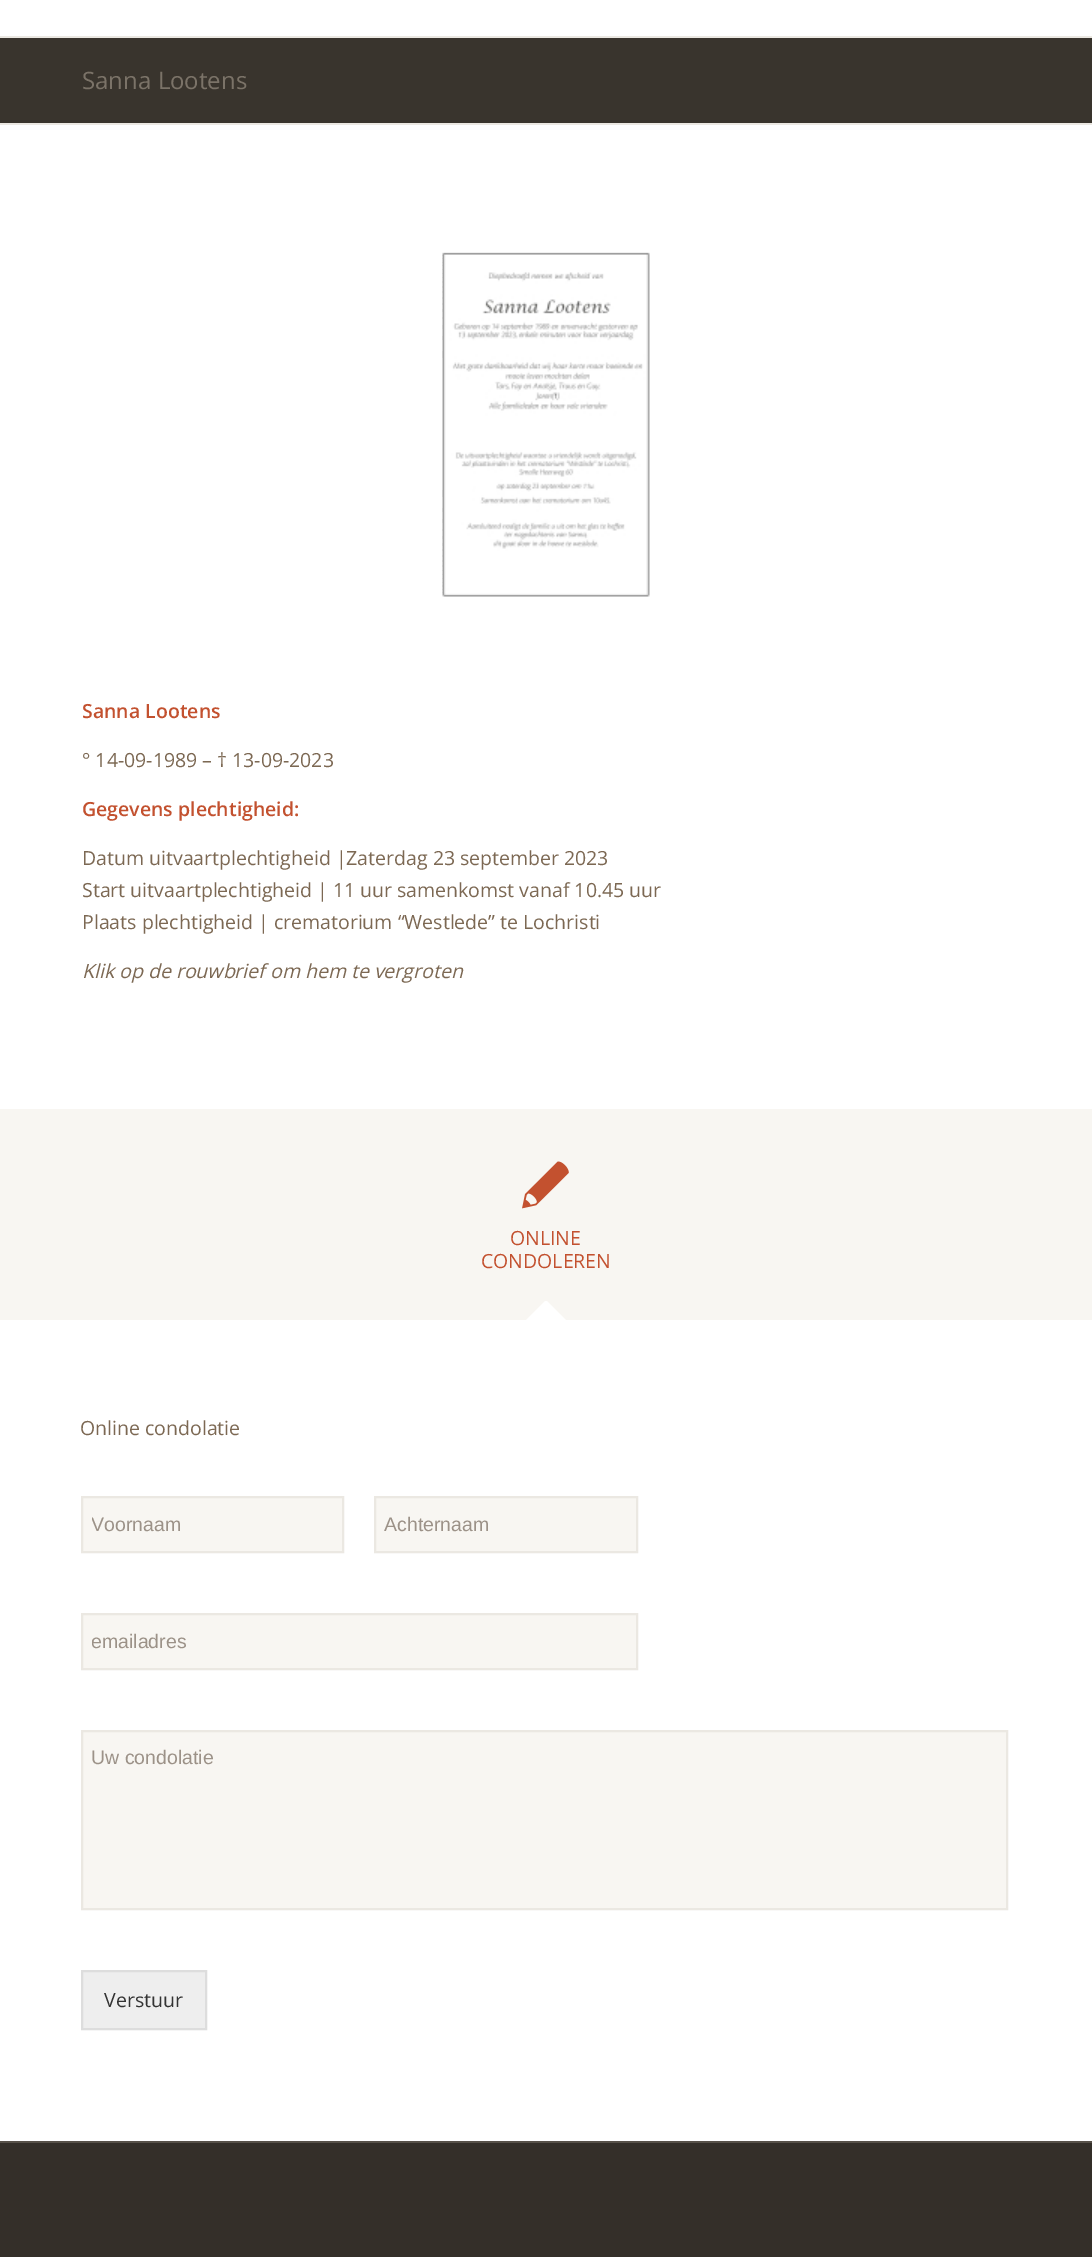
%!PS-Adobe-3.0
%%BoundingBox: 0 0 1092 2257
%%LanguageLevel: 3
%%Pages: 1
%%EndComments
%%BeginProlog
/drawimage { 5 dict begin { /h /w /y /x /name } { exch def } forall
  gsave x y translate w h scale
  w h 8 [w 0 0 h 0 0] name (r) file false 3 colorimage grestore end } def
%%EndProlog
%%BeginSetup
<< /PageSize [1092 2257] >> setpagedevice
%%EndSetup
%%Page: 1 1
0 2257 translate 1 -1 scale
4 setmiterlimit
1 setgray
0 0 1092 2257 rectfill
0.922 0.91 0.886 setrgbcolor
0 36 1092 2 rectfill
0.224 0.204 0.176 setrgbcolor
0 38 1092 85 rectfill
0.922 0.91 0.886 setrgbcolor
0 123 1092 2 rectfill
(images/1.raw) 442 252 208 345 drawimage
0.973 0.965 0.949 setrgbcolor
0 1109 1092 211 rectfill
(images/2.raw) 522 1161 47 48 drawimage
gsave
479 1301 135 22 rectclip
1 setgray
newpath 546 1300 moveto 599 1353 lineto 546 1406 lineto 493 1353 lineto closepath fill
grestore
newpath 82 1497 moveto 343 1497 lineto 343 1552 lineto 82 1552 lineto closepath gsave fill grestore
0.922 0.91 0.886 setrgbcolor
2 setlinewidth
stroke
0.973 0.965 0.949 setrgbcolor
newpath 375 1497 moveto 637 1497 lineto 637 1552 lineto 375 1552 lineto closepath gsave fill grestore
0.922 0.91 0.886 setrgbcolor
stroke
0.973 0.965 0.949 setrgbcolor
newpath 82 1614 moveto 637 1614 lineto 637 1669 lineto 82 1669 lineto closepath gsave fill grestore
0.922 0.91 0.886 setrgbcolor
stroke
0.973 0.965 0.949 setrgbcolor
newpath 82 1731 moveto 1007 1731 lineto 1007 1909 lineto 82 1909 lineto closepath gsave fill grestore
0.922 0.91 0.886 setrgbcolor
stroke
0.933 setgray
newpath 82 1971 moveto 206 1971 lineto 206 2029 lineto 82 2029 lineto closepath gsave fill grestore
0.867 setgray
stroke
0.204 0.184 0.161 setrgbcolor
0 2143 1092 114 rectfill
0.341 0.318 0.286 setrgbcolor
0 2141 1092 2 rectfill
/OpenSans-Regular [24 0 0 -24 0 0] selectfont
0.482 0.451 0.408 setrgbcolor
82 89 moveto (Sanna Lootens) show
/OpenSans-SemiBold [19.5 0 0 -19.5 0 0] selectfont
0.765 0.318 0.184 setrgbcolor
82 718 moveto (Sanna Lootens) show
/OpenSans-Regular [19.5 0 0 -19.5 0 0] selectfont
0.486 0.408 0.325 setrgbcolor
82 767 moveto (° 14-09-1989 – † 13-09-2023) show
/OpenSans-SemiBold [19.5 0 0 -19.5 0 0] selectfont
0.765 0.318 0.184 setrgbcolor
82 816 moveto (Gegevens plechtigheid:) show
/OpenSans-Regular [19.5 0 0 -19.5 0 0] selectfont
0.486 0.408 0.325 setrgbcolor
82 865 moveto (Datum uitvaartplechtigheid |Zaterdag 23 september 2023) show
82 897 moveto (Start uitvaartplechtigheid | 11 uur samenkomst vanaf 10.45 uur) show
82 929 moveto (Plaats plechtigheid | crematorium “Westlede” te Lochristi) show
/OpenSans-Italic [19.5 0 0 -19.5 0 0] selectfont
82 978 moveto (Klik op de rouwbrief om hem te vergroten) show
/OpenSans-Regular [19.5 0 0 -19.5 0 0] selectfont
0.765 0.318 0.184 setrgbcolor
510 1245 moveto (ONLINE) show
481 1268 moveto (CONDOLEREN) show
0.486 0.408 0.325 setrgbcolor
80 1435 moveto (Online condolatie) show
gsave
92 1512 241 23 rectclip
/LiberationSans-Regular [19.5 0 0 -19.5 0 0] selectfont
0.612 0.573 0.533 setrgbcolor
91 1531 moveto (Voornaam) show
grestore
/LiberationSans-Regular [19.5 0 0 -19.5 0 0] selectfont
0.612 0.573 0.533 setrgbcolor
384 1531 moveto (Achternaam) show
gsave
92 1629 535 23 rectclip
91 1648 moveto (emailadres) show
grestore
91 1764 moveto (Uw condolatie) show
/OpenSans-Regular [19.5 0 0 -19.5 0 0] selectfont
0.2 setgray
104 2007 moveto (Verstuur) show
showpage
%%EOF
